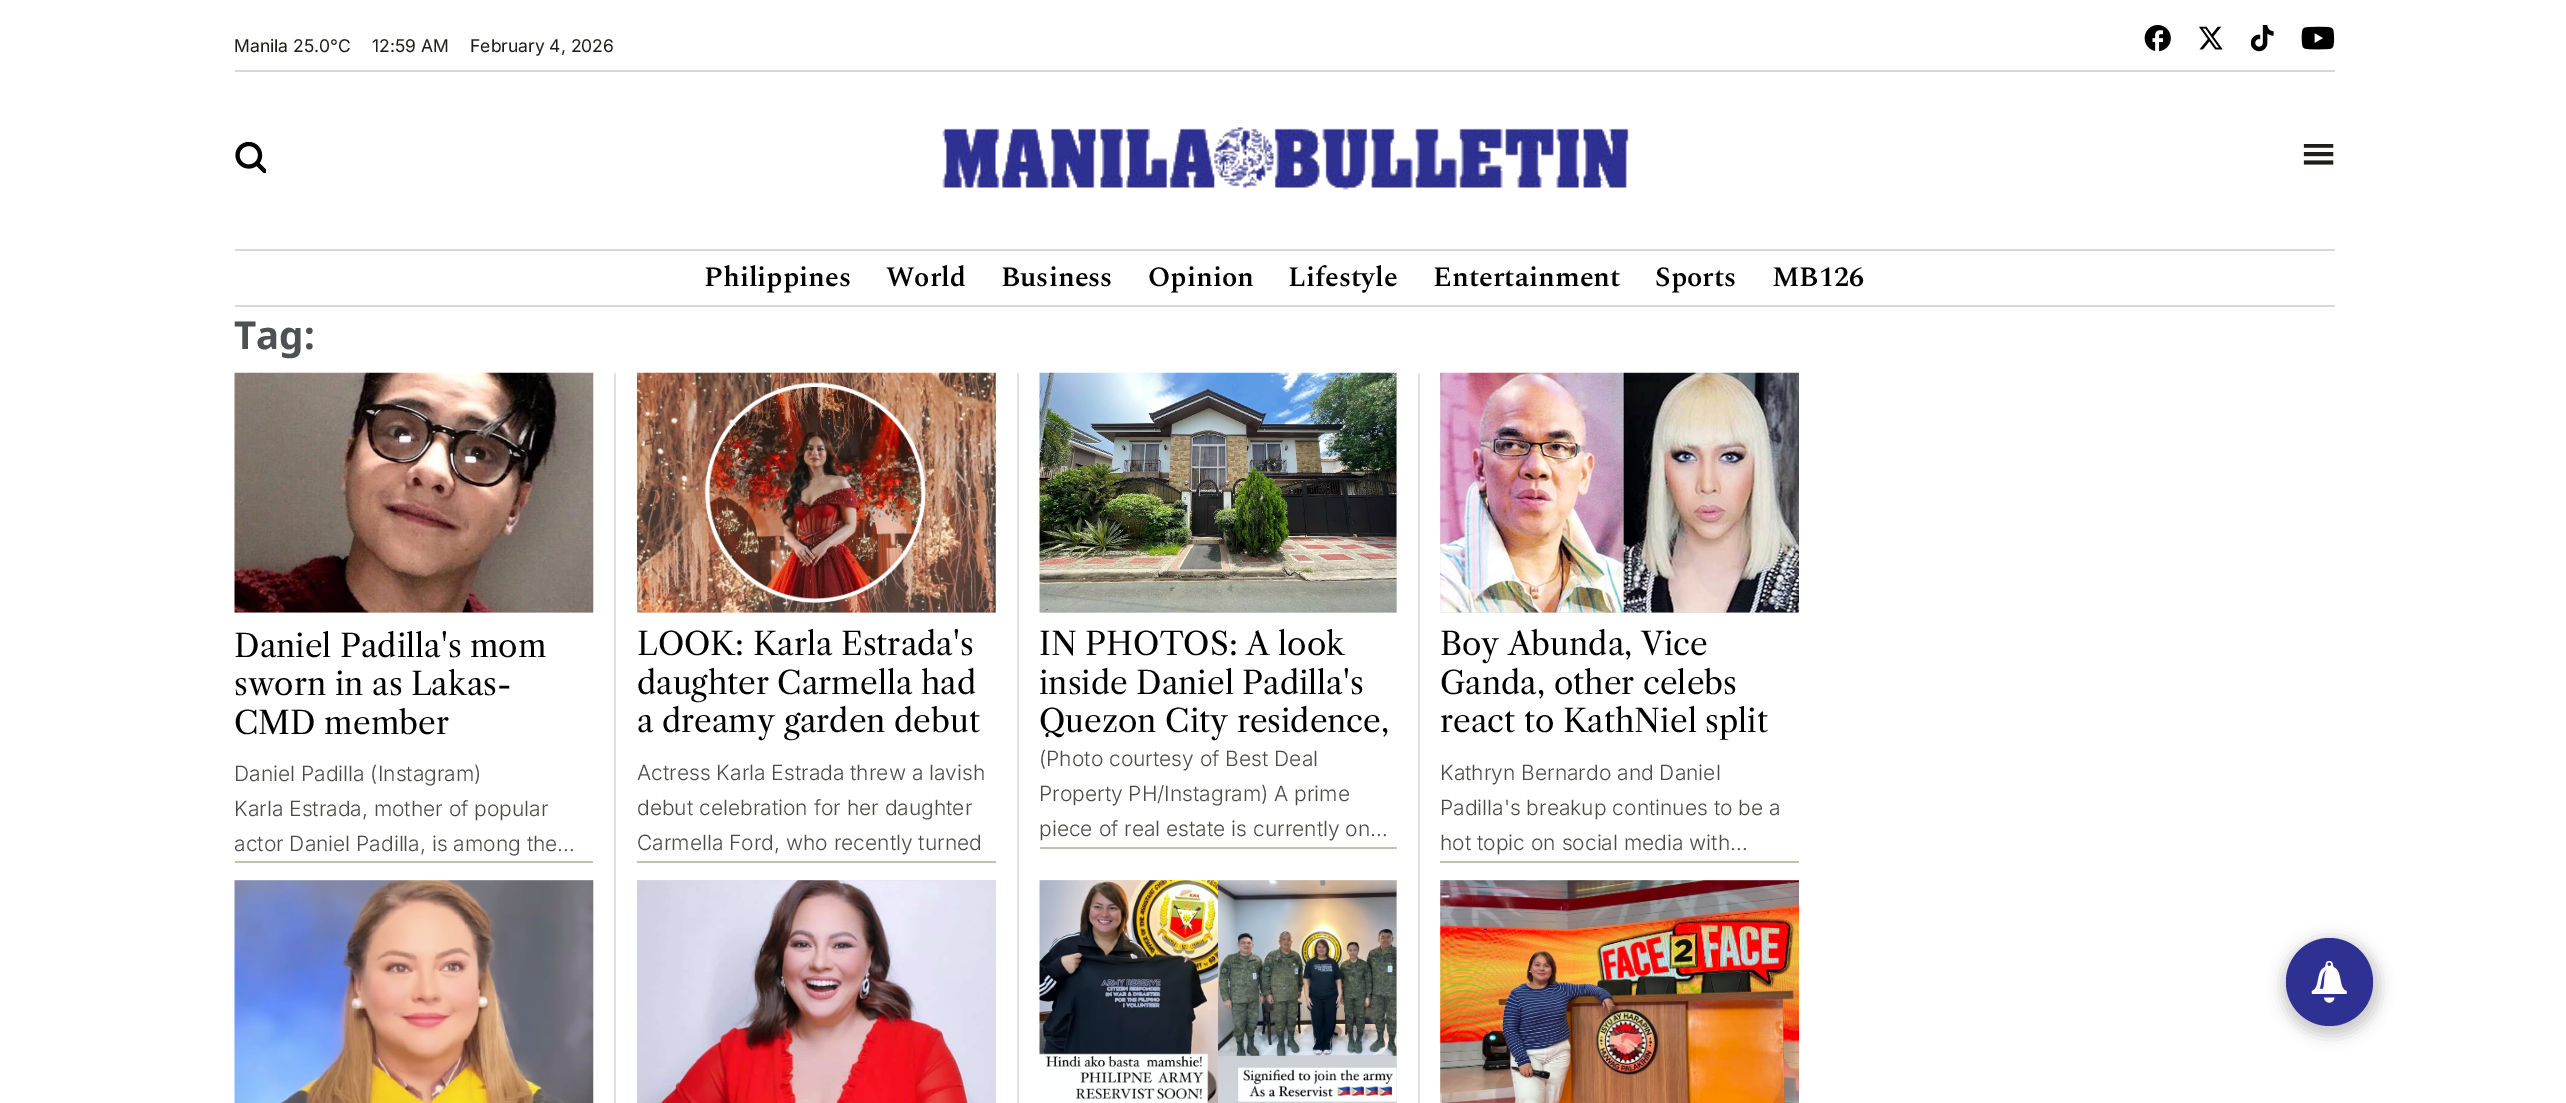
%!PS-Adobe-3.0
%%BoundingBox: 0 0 2566 1103
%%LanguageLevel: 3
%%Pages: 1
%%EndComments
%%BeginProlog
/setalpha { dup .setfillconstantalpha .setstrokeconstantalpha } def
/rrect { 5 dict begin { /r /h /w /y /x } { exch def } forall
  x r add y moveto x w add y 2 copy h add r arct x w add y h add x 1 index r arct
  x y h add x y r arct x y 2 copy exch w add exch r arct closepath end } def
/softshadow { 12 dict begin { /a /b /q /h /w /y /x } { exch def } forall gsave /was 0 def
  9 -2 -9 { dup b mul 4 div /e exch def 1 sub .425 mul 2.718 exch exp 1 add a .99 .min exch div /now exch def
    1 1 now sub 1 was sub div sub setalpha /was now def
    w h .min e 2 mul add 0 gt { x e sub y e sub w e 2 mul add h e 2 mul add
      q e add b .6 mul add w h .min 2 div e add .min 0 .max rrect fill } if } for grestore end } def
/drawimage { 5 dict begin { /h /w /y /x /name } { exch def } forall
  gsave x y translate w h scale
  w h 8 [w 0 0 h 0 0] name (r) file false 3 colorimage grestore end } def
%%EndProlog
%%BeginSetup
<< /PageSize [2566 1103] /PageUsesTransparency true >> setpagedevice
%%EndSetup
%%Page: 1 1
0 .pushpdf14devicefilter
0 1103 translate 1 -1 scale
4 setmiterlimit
1 setgray
0 0 2566 1103 rectfill
(images/1.raw) 2144 25 27 27 drawimage
(images/2.raw) 2199 26 24 24 drawimage
(images/3.raw) 2251 25 23 27 drawimage
(images/4.raw) 2301 26 34 24 drawimage
0.847 setgray
235 70 2100 2 rectfill
235 249 2100 2 rectfill
(images/5.raw) 235 142 31 31 drawimage
(images/6.raw) 942 127 687 63 drawimage
(images/7.raw) 2303 144 31 21 drawimage
235 305 2100 2 rectfill
0.89 setgray
235 612 358 1 rectfill
(images/8.raw) 234 372 360 241 drawimage
0.765 0.757 0.682 setrgbcolor
235 861 358 2 rectfill
0.878 setgray
614 373 2 730 rectfill
0.89 setgray
637 373 359 240 rectfill
(images/9.raw) 637 372 359 241 drawimage
0.765 0.757 0.682 setrgbcolor
637 861 359 2 rectfill
0.878 setgray
1017 373 2 730 rectfill
0.89 setgray
1040 373 357 240 rectfill
(images/10.raw) 1039 372 358 241 drawimage
0.765 0.757 0.682 setrgbcolor
1040 847 357 2 rectfill
0.878 setgray
1418 373 2 730 rectfill
0.89 setgray
1440 373 359 240 rectfill
(images/11.raw) 1440 372 359 241 drawimage
0.765 0.757 0.682 setrgbcolor
1440 861 359 2 rectfill
(images/12.raw) 234 880 360 223 drawimage
0.89 setgray
637 880 359 223 rectfill
(images/13.raw) 637 880 359 223 drawimage
1040 880 357 223 rectfill
(images/14.raw) 1039 880 358 223 drawimage
1440 880 359 223 rectfill
(images/15.raw) 1440 880 359 223 drawimage
0 setgray
2282 938 98 98 49 7 0.2 softshadow
0.18 0.192 0.573 setrgbcolor
2286 938 87 88 43.5 rrect fill
(images/16.raw) 2311 961 36 42 drawimage
/Inter-Regular [17.5 0 0 -17.5 0 0] selectfont
0.122 0.114 0.102 setrgbcolor
234 52 moveto (Manila 25.0°C) show
372 52 moveto (12:59 AM) show
470 52 moveto (February 4, 2026) show
/Spectral-SemiBold [28 0 0 -28 0 0] selectfont
0 setgray
704 286 moveto (Philippines) show
886 286 moveto (World) show
1001 286 moveto (Business) show
1148 286 moveto (Opinion) show
1288 286 moveto (Lifestyle) show
1433 286 moveto (Entertainment) show
1655 286 moveto (Sports) show
1772 286 moveto (MB126) show
/NotoSans-Bold [38.5 0 0 -38.5 0 0] selectfont
0.302 0.318 0.329 setrgbcolor
234 349 moveto (Tag:) show
/LibreCaslonText-Regular [31.5 0 0 -31.5 0 0] selectfont
0 setgray
234 657 moveto (Daniel Padilla's mom) show
234 695 moveto (sworn in as Lakas-) show
234 734 moveto (CMD member) show
/Inter-Light [21 0 0 -21 0 0] selectfont
0.294 0.29 0.278 setrgbcolor
234 781 moveto (Daniel Padilla \(Instagram\)) show
234 816 moveto (Karla Estrada, mother of popular) show
gsave
235 756 358 105 rectclip
234 851 moveto (actor Daniel Padilla, is among the…) show
grestore
/LibreCaslonText-Regular [31.5 0 0 -31.5 0 0] selectfont
0 setgray
637 655 moveto (LOOK: Karla Estrada's) show
637 694 moveto (daughter Carmella had) show
637 732 moveto (a dreamy garden debut) show
/Inter-Light [21 0 0 -21 0 0] selectfont
0.294 0.29 0.278 setrgbcolor
637 780 moveto (Actress Karla Estrada threw a lavish) show
637 815 moveto (debut celebration for her daughter) show
637 850 moveto (Carmella Ford, who recently turned) show
/LibreCaslonText-Regular [31.5 0 0 -31.5 0 0] selectfont
0 setgray
1039 655 moveto (IN PHOTOS: A look) show
1039 694 moveto (inside Daniel Padilla's) show
1039 732 moveto (Quezon City residence,) show
/Inter-Light [21 0 0 -21 0 0] selectfont
0.294 0.29 0.278 setrgbcolor
1039 766 moveto (\(Photo courtesy of Best Deal) show
1039 801 moveto (Property PH/Instagram\) A prime) show
1039 836 moveto (piece of real estate is currently on…) show
/LibreCaslonText-Regular [31.5 0 0 -31.5 0 0] selectfont
0 setgray
1440 655 moveto (Boy Abunda, Vice) show
1440 694 moveto (Ganda, other celebs) show
1440 732 moveto (react to KathNiel split) show
/Inter-Light [21 0 0 -21 0 0] selectfont
0.294 0.29 0.278 setrgbcolor
1440 780 moveto (Kathryn Bernardo and Daniel) show
1440 815 moveto (Padilla's breakup continues to be a) show
1440 850 moveto (hot topic on social media with…) show
.poppdf14devicefilter showpage
%%EOF
